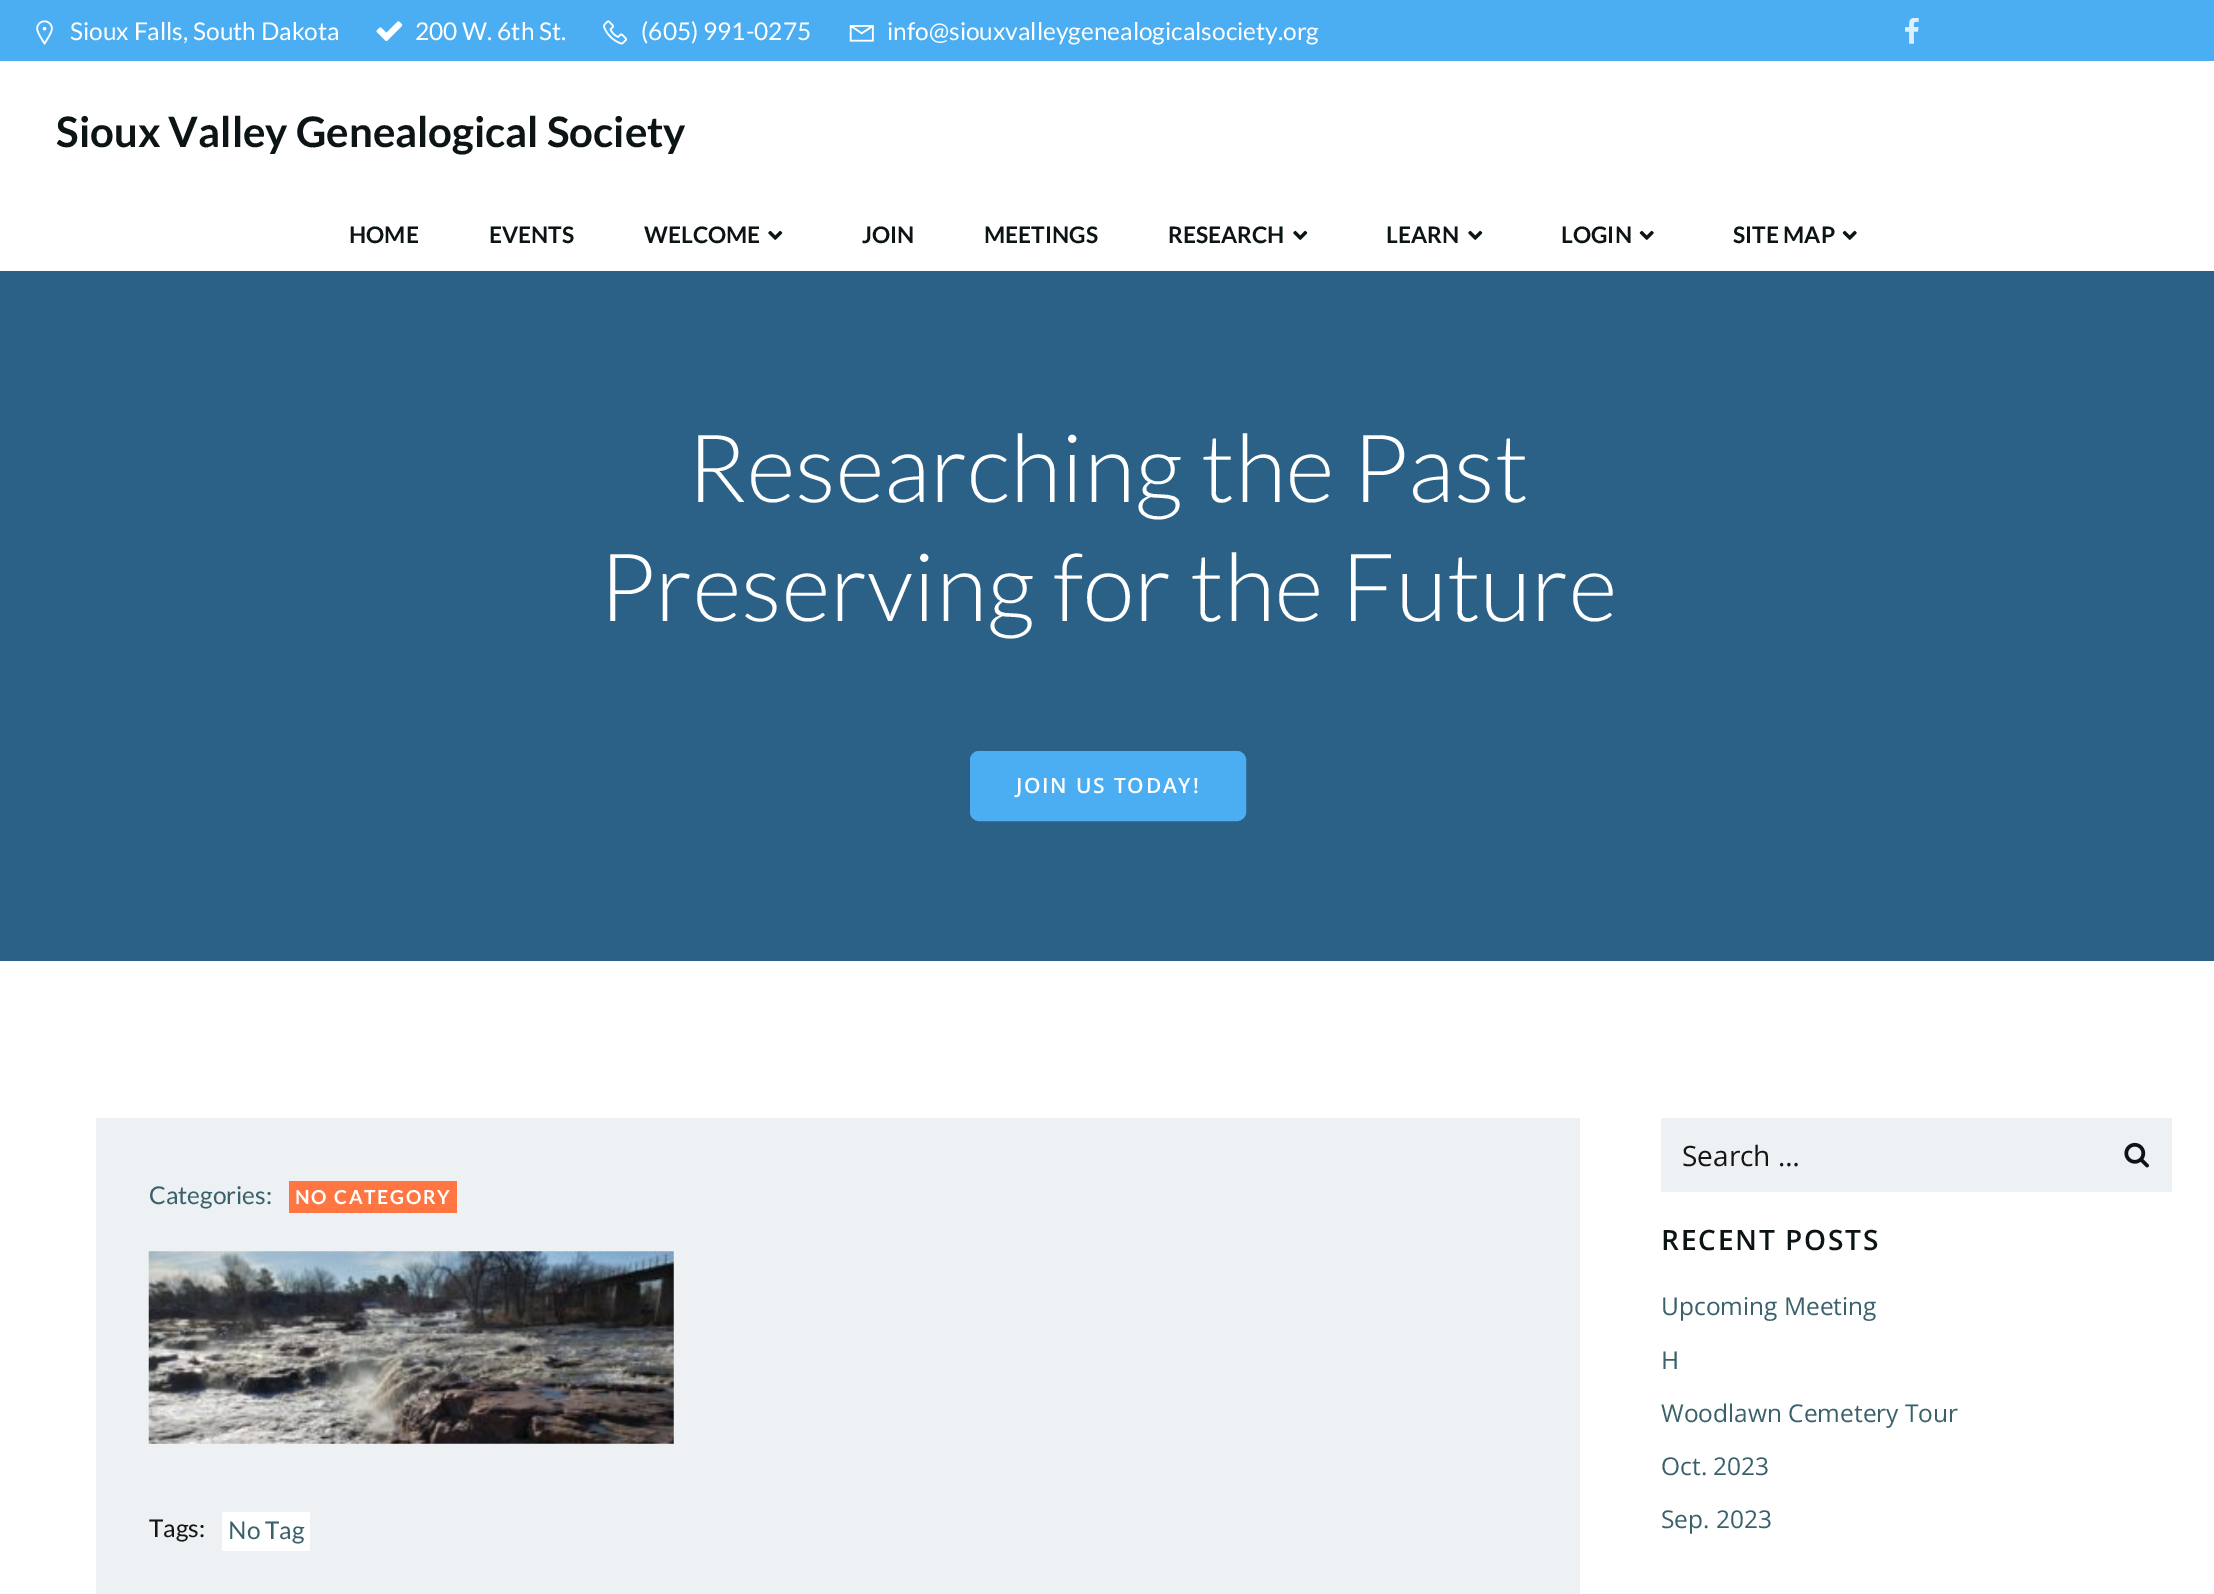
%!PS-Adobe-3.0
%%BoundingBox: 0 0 2214 1594
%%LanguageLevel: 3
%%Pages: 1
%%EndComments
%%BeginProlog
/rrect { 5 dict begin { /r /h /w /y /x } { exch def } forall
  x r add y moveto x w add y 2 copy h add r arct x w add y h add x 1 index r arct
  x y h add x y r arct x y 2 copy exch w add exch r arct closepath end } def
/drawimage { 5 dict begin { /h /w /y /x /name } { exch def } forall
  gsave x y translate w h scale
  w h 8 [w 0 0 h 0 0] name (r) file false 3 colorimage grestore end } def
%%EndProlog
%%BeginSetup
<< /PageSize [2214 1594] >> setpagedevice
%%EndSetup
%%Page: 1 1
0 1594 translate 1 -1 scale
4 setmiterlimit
1 setgray
0 0 2214 1594 rectfill
0.294 0.682 0.953 setrgbcolor
0 0 2214 61 rectfill
(images/1.raw) 36 20 17 25 drawimage
(images/2.raw) 376 21 27 20 drawimage
(images/3.raw) 603 20 24 25 drawimage
(images/4.raw) 849 25 25 17 drawimage
(images/5.raw) 1905 18 14 26 drawimage
(images/6.raw) 768 230 15 10 drawimage
(images/6.raw) 1293 230 15 10 drawimage
(images/6.raw) 1468 230 15 10 drawimage
(images/7.raw) 1639 230 15 10 drawimage
(images/7.raw) 1842 230 15 10 drawimage
0.169 0.376 0.529 setrgbcolor
0 271 2214 690 rectfill
0.294 0.682 0.953 setrgbcolor
972 753 272 66 7 rrect gsave fill grestore
4 setlinewidth
stroke
0.929 0.945 0.953 setrgbcolor
96 1118 1484 476 rectfill
1 0.463 0.263 setrgbcolor
289 1181 168 32 rectfill
(images/8.raw) 148 1251 526 193 drawimage
1 setgray
222 1512 88 39 rectfill
0.929 0.945 0.953 setrgbcolor
1661 1118 511 74 rectfill
(images/9.raw) 2124 1142 25 26 drawimage
/Lato-Regular [24.5 0 0 -24.5 0 0] selectfont
1 setgray
70 40 moveto (Sioux Falls, South Dakota) show
415 40 moveto (200 W. 6th St.) show
641 40 moveto (\(605\) 991-0275) show
887 40 moveto (info@siouxvalleygenealogicalsociety.org) show
/Lato-Bold [42 0 0 -42 0 0] selectfont
0.047 0.078 0.086 setrgbcolor
56 147 moveto (Sioux Valley Genealogical Society) show
/Lato-Bold [22.75 0 0 -22.75 0 0] selectfont
349 243 moveto (HOME) show
489 243 moveto (EVENTS) show
644 243 moveto (WELCOME) show
862 243 moveto (JOIN) show
984 243 moveto (MEETINGS) show
1168 243 moveto (RESEARCH) show
1386 243 moveto (LEARN) show
1561 243 moveto (LOGIN) show
1733 243 moveto (SITE MAP) show
/Lato-Light [94.5 0 0 -94.5 0 0] selectfont
1 setgray
687 502 moveto (Researching the Past) show
599 621 moveto (Preserving for the Future) show
/OpenSans-SemiBold [21 0 0 -21 0 0] selectfont
1016 793 moveto 1.75 0 (JOIN US TODAY!) ashow
/Lato-Regular [24.5 0 0 -24.5 0 0] selectfont
0.227 0.38 0.42 setrgbcolor
149 1204 moveto (Categories:) show
/Lato-Bold [19.25 0 0 -19.25 0 0] selectfont
1 setgray
295 1204 moveto 1.75 0 (NO CATEGORY) ashow
/Lato-Regular [24.5 0 0 -24.5 0 0] selectfont
0.075 0.082 0.086 setrgbcolor
149 1537 moveto (Tags:) show
0.227 0.38 0.42 setrgbcolor
228 1539 moveto (No Tag) show
/OpenSans-Regular [28 0 0 -28 0 0] selectfont
0.075 0.082 0.086 setrgbcolor
1682 1166 moveto (Search …) show
/OpenSans-SemiBold [28 0 0 -28 0 0] selectfont
0.047 0.078 0.086 setrgbcolor
1661 1250 moveto 1.75 0 (RECENT POSTS) ashow
/OpenSans-Regular [24.5 0 0 -24.5 0 0] selectfont
0.227 0.38 0.42 setrgbcolor
1661 1315 moveto (Upcoming Meeting) show
1661 1369 moveto (H) show
1661 1422 moveto (Woodlawn Cemetery Tour) show
1661 1475 moveto (Oct. 2023) show
1661 1528 moveto (Sep. 2023) show
showpage
%%EOF
